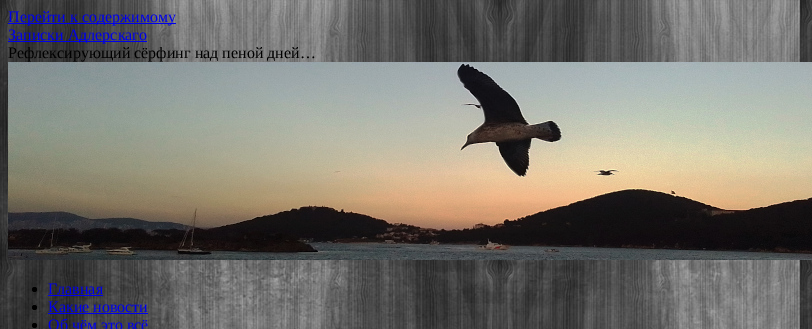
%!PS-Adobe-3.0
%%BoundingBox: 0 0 812 329
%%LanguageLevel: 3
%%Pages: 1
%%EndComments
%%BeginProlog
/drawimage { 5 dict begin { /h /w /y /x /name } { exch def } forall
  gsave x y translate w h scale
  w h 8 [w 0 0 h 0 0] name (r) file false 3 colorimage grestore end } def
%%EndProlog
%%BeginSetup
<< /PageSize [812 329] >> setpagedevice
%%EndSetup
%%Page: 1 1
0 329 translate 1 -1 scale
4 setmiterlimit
1 setgray
0 0 812 329 rectfill
(images/1.raw) 0 0 812 329 drawimage
0 0 0.933 setrgbcolor
8 23 168 1 rectfill
8 41 139 1 rectfill
(images/2.raw) 8 62 804 198 drawimage
0 setgray
newpath 34.5 289.5 2.5 0 360 arc closepath fill
0 0 0.933 setrgbcolor
48 295 55 1 rectfill
0 setgray
newpath 34.5 307.5 2.5 0 360 arc closepath fill
0 0 0.933 setrgbcolor
48 313 100 1 rectfill
0 setgray
newpath 34.5 325.5 2.5 0 360 arc closepath fill
/LiberationSerif-Regular [16 0 0 -16 0 0] selectfont
0 0 0.933 setrgbcolor
8 22 moveto (Перейти к содержимому) show
8 40 moveto (Записки Адлерскаго) show
0 setgray
8 58 moveto (Рефлексирующий сёрфинг над пеной дней…) show
0 0 0.933 setrgbcolor
48 294 moveto (Главная) show
48 312 moveto (Какие новости) show
48 330 moveto (Об чём это всё) show
showpage
%%EOF
